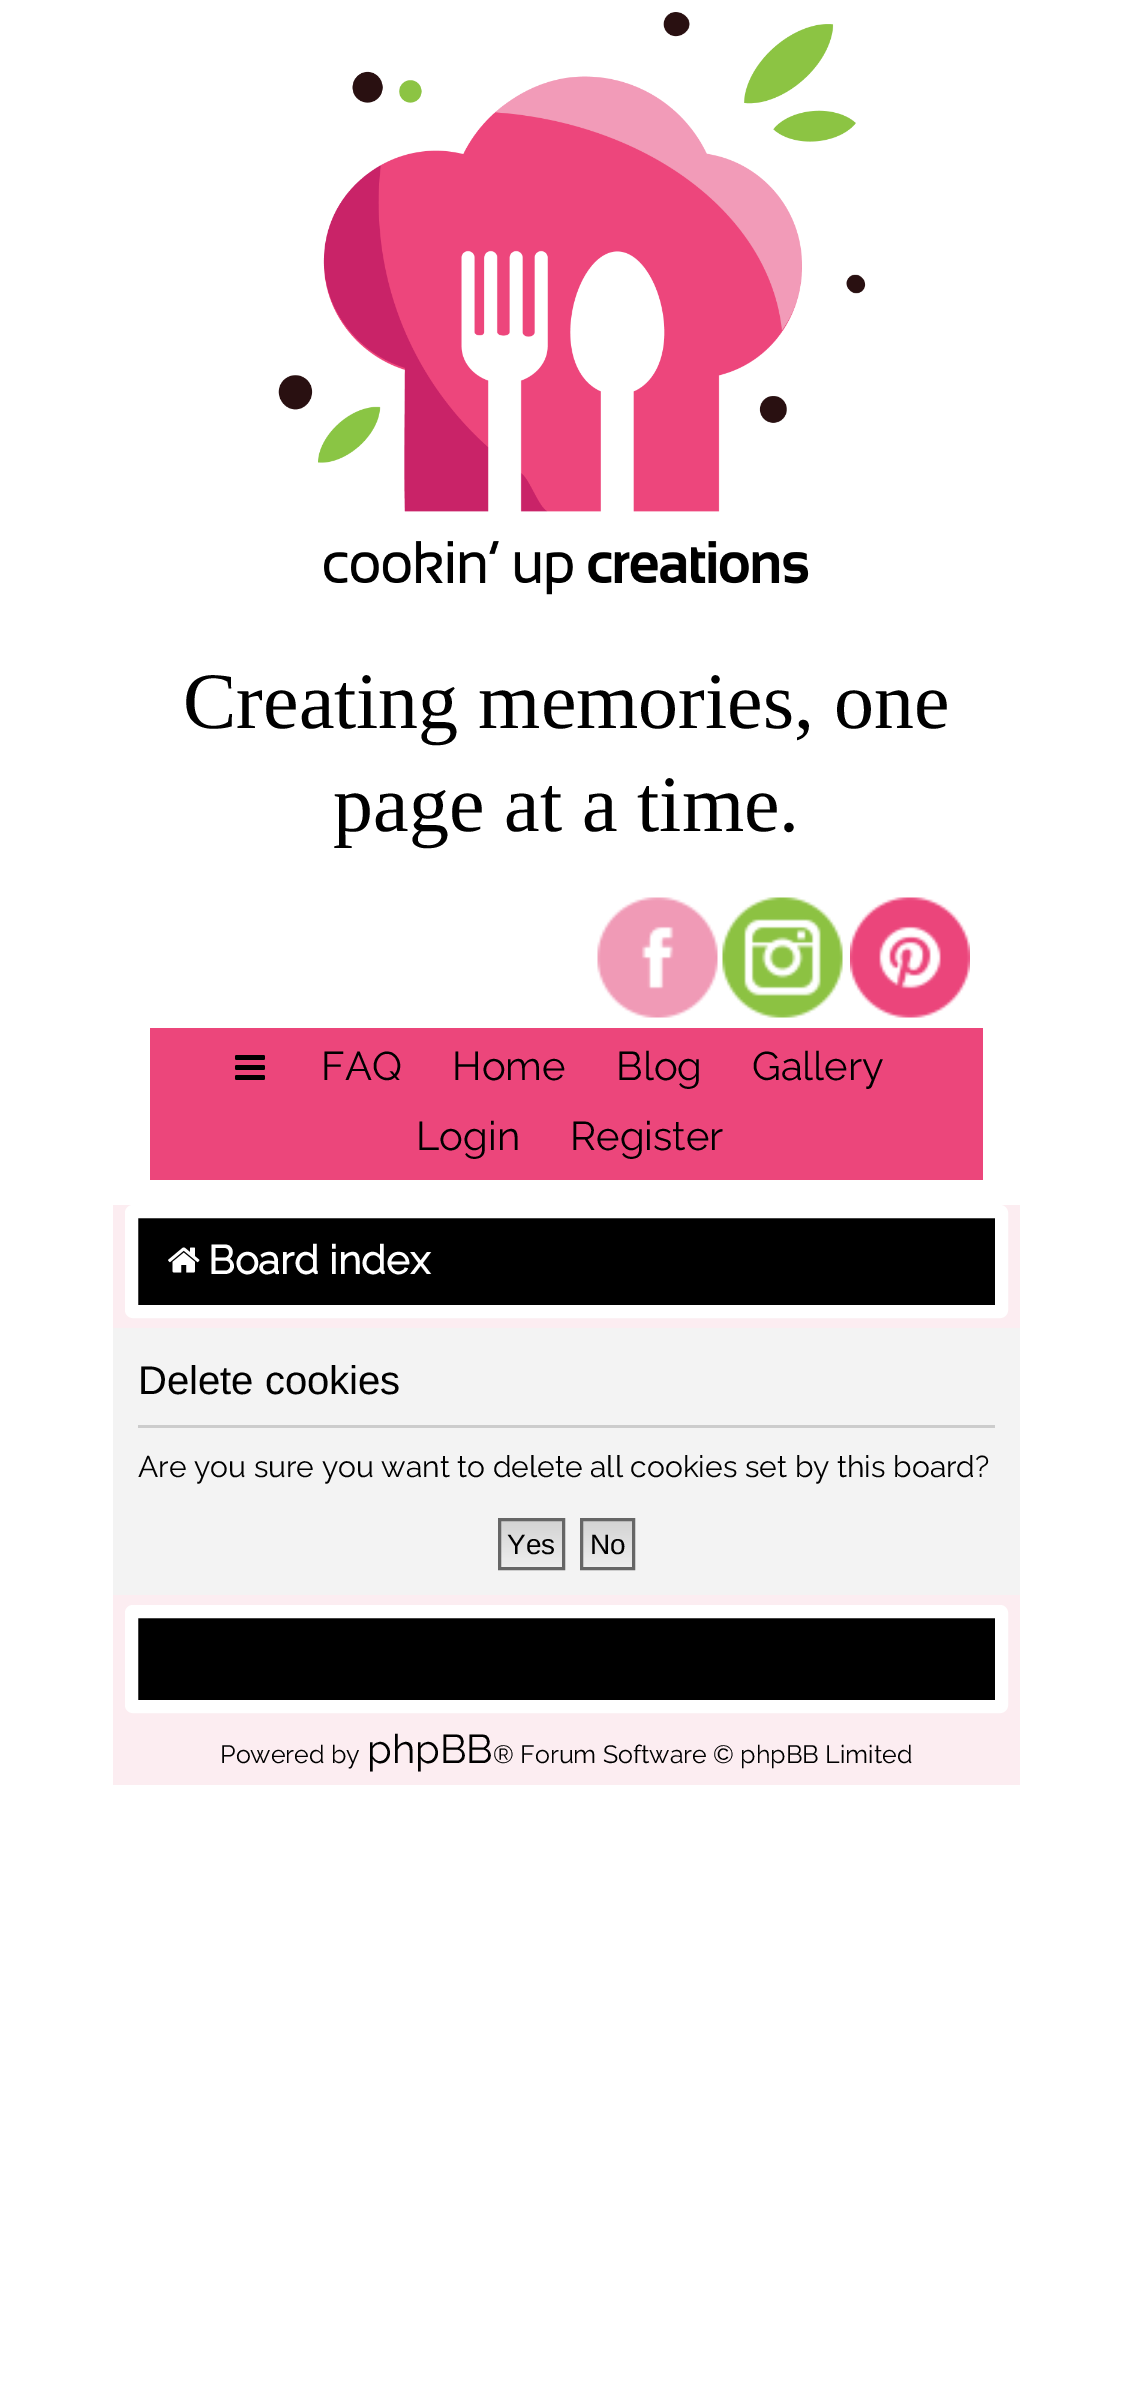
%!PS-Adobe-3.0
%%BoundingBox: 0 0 1132 2394
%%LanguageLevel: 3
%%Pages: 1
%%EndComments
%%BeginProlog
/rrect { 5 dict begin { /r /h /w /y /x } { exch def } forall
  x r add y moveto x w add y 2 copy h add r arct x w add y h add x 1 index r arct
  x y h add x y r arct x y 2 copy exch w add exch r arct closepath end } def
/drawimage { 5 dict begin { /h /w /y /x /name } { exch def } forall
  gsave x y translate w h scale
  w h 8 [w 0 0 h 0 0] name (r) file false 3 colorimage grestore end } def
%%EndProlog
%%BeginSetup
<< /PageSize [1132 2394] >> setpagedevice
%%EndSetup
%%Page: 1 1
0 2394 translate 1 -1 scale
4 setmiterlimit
1 setgray
0 0 1132 2394 rectfill
(images/1.raw) 278 12 588 583 drawimage
(images/2.raw) 597 897 121 121 drawimage
(images/3.raw) 722 897 121 121 drawimage
(images/4.raw) 850 897 120 121 drawimage
0.925 0.275 0.482 setrgbcolor
150 1028 833 152 rectfill
(images/5.raw) 235 1055 30 25 drawimage
0.988 0.929 0.945 setrgbcolor
113 1205 907 580 rectfill
0 setgray
131.5 1211.5 870 100 1.5 rrect gsave fill grestore
1 setgray
13 setlinewidth
stroke
(images/6.raw) 168 1247 32 26 drawimage
0.953 setgray
113 1328 907 267 rectfill
0.8 setgray
138 1425 857 3 rectfill
gsave newpath 501 1521 moveto 562 1521 lineto 562 1567 lineto 501 1567 lineto closepath clip newpath
<< /ShadingType 2 /ColorSpace /DeviceRGB /Coords [531 1520 531 1568] /Extend [true true] /Function << /FunctionType 2 /Domain [0 1] /C0 [0.824 0.824 0.824] /C1 [0.937 0.937 0.937] /N 1 >> >> shfill grestore
0.4 setgray
3 setlinewidth
499.5 1519.5 64 49 rectstroke
gsave newpath 583 1521 moveto 632 1521 lineto 632 1567 lineto 583 1567 lineto closepath clip newpath
<< /ShadingType 2 /ColorSpace /DeviceRGB /Coords [608 1520 608 1568] /Extend [true true] /Function << /FunctionType 2 /Domain [0 1] /C0 [0.824 0.824 0.824] /C1 [0.937 0.937 0.937] /N 1 >> >> shfill grestore
581.5 1519.5 52 49 rectstroke
0 setgray
131.5 1611.5 870 95 1.5 rrect gsave fill grestore
1 setgray
13 setlinewidth
stroke
/LiberationSerif-Regular [80 0 0 -80 0 0] selectfont
0 setgray
183 728 moveto (Creating memories, one) show
333 831 moveto (page at a time.) show
/Raleway-Thin [40 0 0 -40 0 0] selectfont
321 1080 moveto (FAQ) show
452 1080 moveto (Home) show
616 1080 moveto (Blog) show
752 1080 moveto (Gallery) show
416 1150 moveto (Login) show
570 1150 moveto (Register) show
/Raleway-Bold [40 0 0 -40 0 0] selectfont
1 setgray
208 1274 moveto (Board index) show
/LiberationSans-Regular [40 0 0 -40 0 0] selectfont
0 setgray
138 1394 moveto (Delete cookies) show
/Raleway-Thin [30 0 0 -30 0 0] selectfont
138 1477 moveto (Are you sure you want to delete all cookies set by this board?) show
/LiberationSans-Regular [28 0 0 -28 0 0] selectfont
507 1554 moveto (Yes) show
590 1554 moveto (No) show
/Raleway-Thin [25 0 0 -25 0 0] selectfont
220 1763 moveto (Powered by) show
/Raleway-Thin [40 0 0 -40 0 0] selectfont
367 1763 moveto (phpBB) show
/Raleway-Thin [25 0 0 -25 0 0] selectfont
493 1763 moveto (® Forum Software © phpBB Limited) show
showpage
%%EOF
